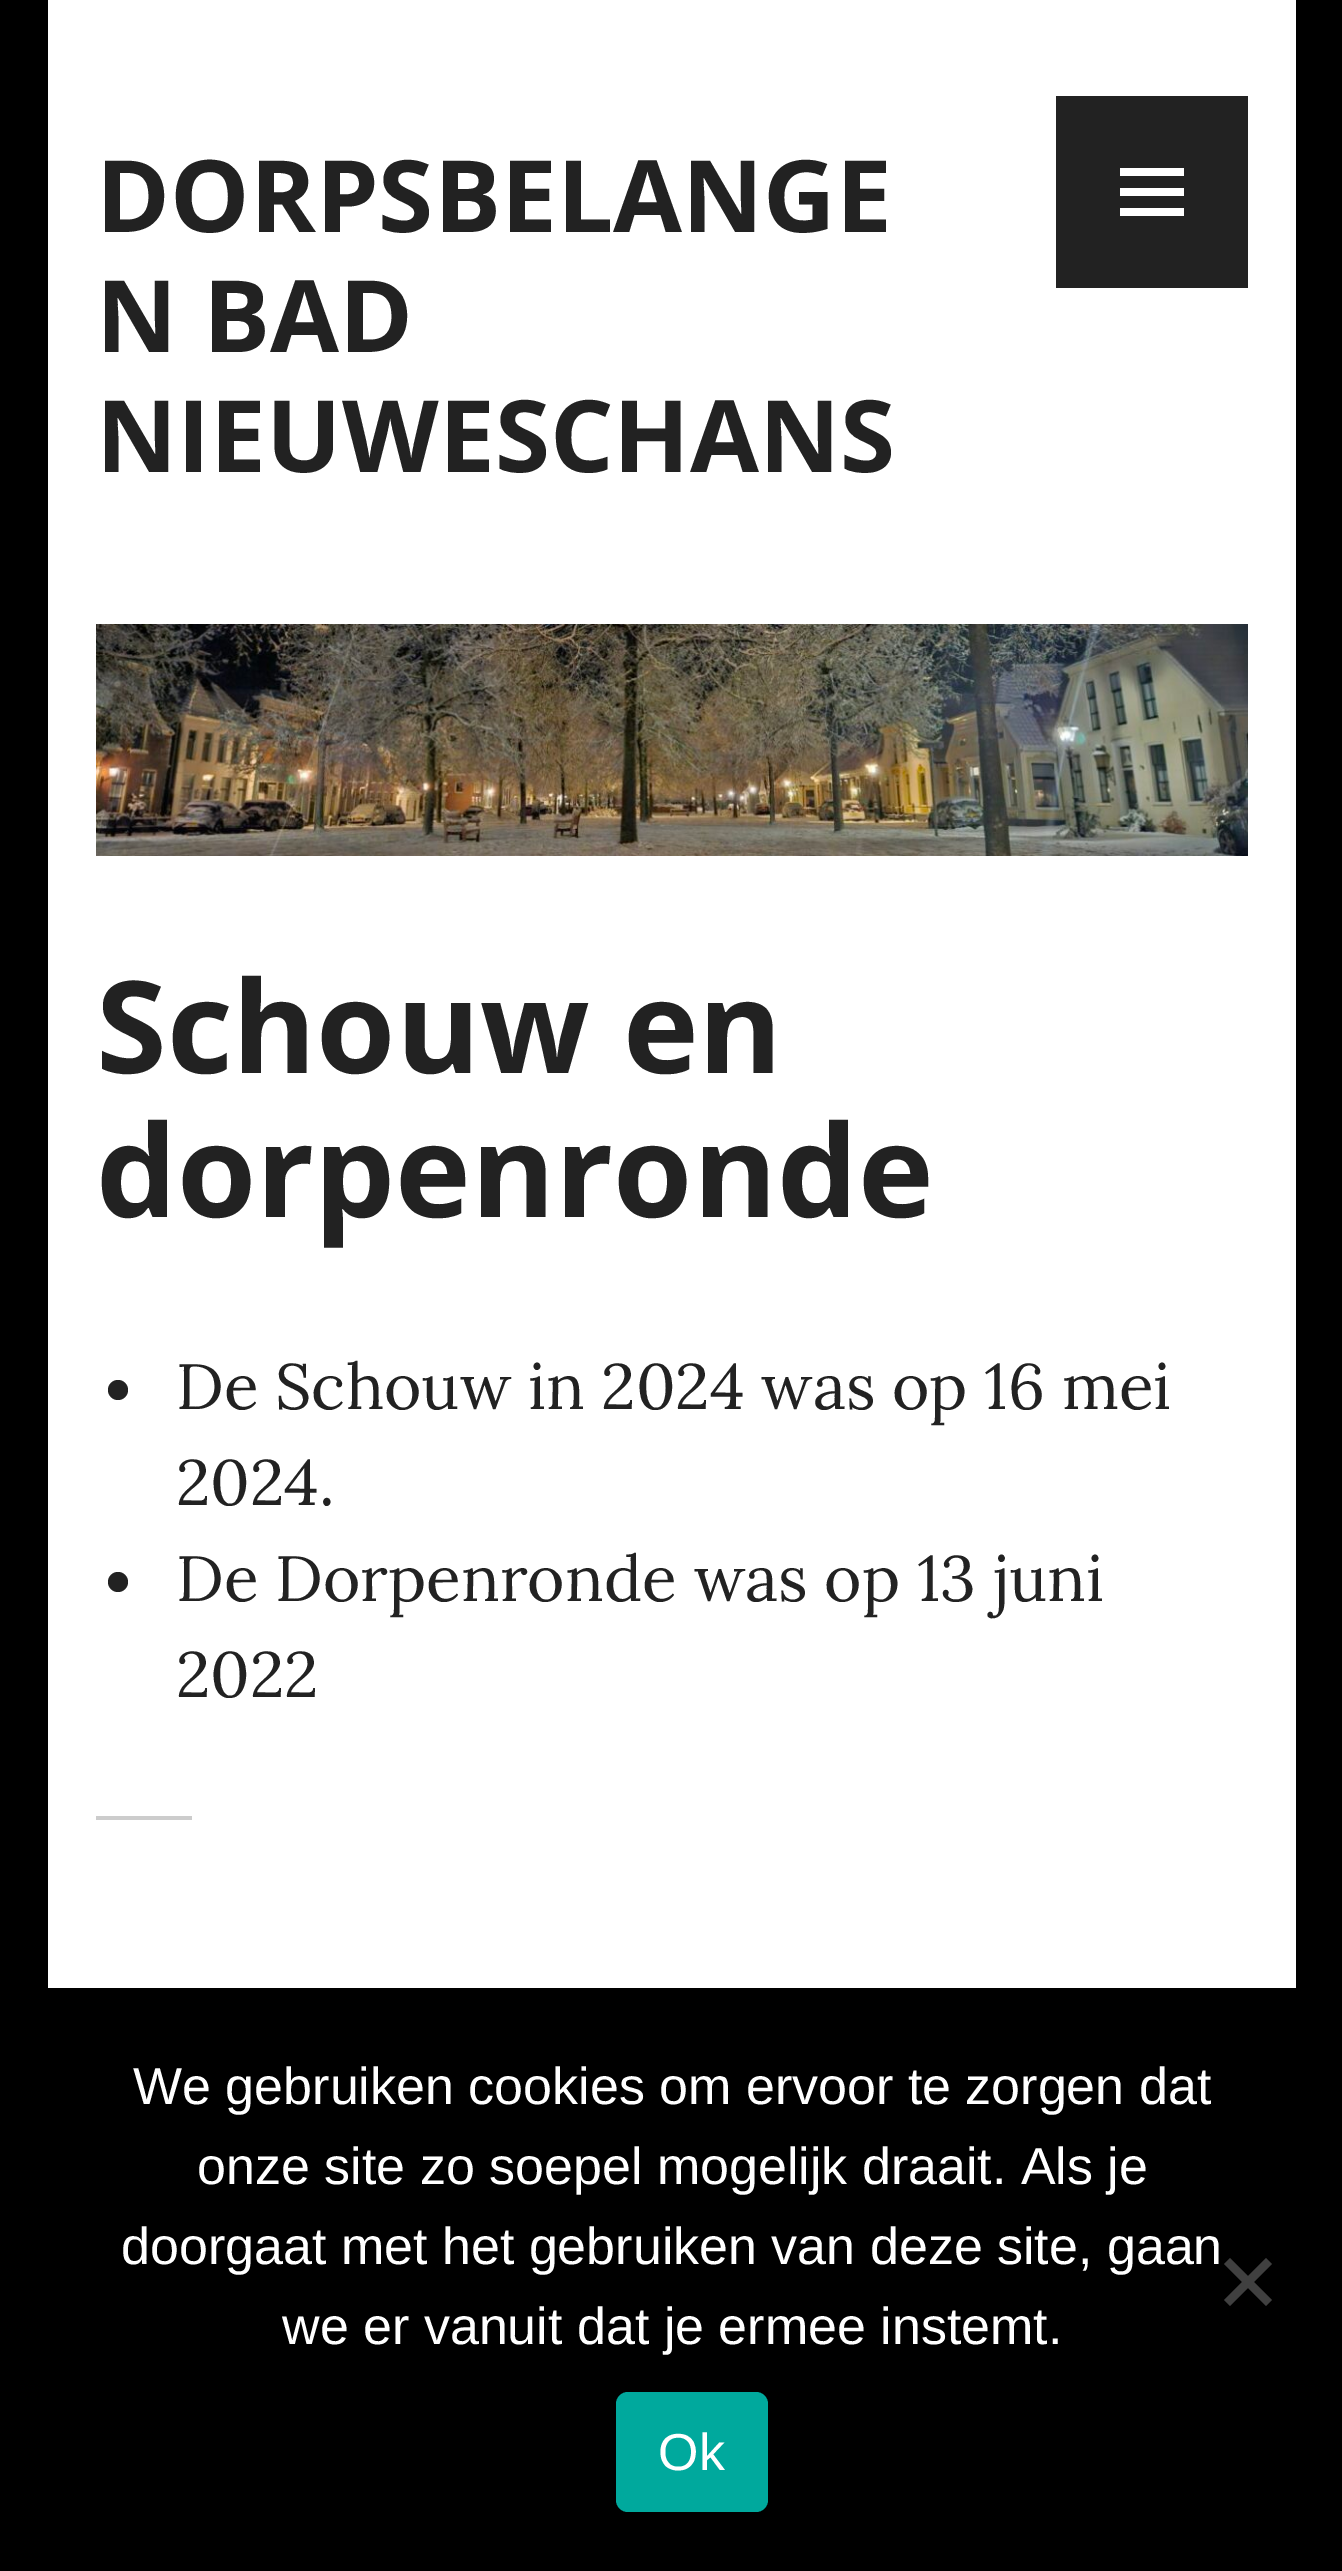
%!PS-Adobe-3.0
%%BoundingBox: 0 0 1342 2571
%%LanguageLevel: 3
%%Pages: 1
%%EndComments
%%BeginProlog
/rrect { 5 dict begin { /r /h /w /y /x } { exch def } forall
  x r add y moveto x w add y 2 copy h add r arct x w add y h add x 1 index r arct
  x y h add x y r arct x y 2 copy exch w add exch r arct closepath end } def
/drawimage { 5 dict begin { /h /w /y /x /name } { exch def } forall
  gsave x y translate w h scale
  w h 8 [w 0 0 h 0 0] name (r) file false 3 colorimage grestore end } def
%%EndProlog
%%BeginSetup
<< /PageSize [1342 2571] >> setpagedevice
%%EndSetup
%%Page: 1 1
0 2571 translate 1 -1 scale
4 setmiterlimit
0 setgray
0 0 1342 2571 rectfill
1 setgray
48 0 1248 1988 rectfill
0.133 setgray
1056 96 192 192 rectfill
1 setgray
newpath 1120 216 moveto 1120 208 lineto 1184 208 lineto 1184 216 lineto closepath 1120 168 moveto 1184 168 lineto 1184 176 lineto 1120 176 lineto closepath 1120 196 moveto 1120 188 lineto 1184 188 lineto 1184 196 lineto closepath fill
(images/1.raw) 96 624 1152 232 drawimage
0.133 setgray
newpath 118 1390 10 0 360 arc closepath fill
newpath 118 1582 10 0 360 arc closepath fill
0.8 setgray
96 1816 96 4 rectfill
0.251 setgray
newpath 1266 2258 moveto 1272 2264 lineto 1230 2306 lineto 1224 2300 lineto closepath fill
newpath 1224 2264 moveto 1230 2258 lineto 1272 2300 lineto 1266 2306 lineto closepath fill
0 0.663 0.616 setrgbcolor
616 2392 152 120 12 rrect fill
/OpenSans-Bold [100 0 0 -100 0 0] selectfont
0.133 setgray
96 232 moveto (DORPSBELANGE) show
96 352 moveto (N BAD) show
96 472 moveto (NIEUWESCHANS) show
/OpenSans-Bold [128 0 0 -128 0 0] selectfont
96 1073 moveto (Schouw en) show
96 1217 moveto (dorpenronde) show
/Lora-Regular [64 0 0 -64 0 0] selectfont
176 1409 moveto (De Schouw in 2024 was op 16 mei) show
176 1505 moveto (2024.) show
176 1601 moveto (De Dorpenronde was op 13 juni) show
176 1697 moveto (2022) show
/LiberationSans-Regular [52 0 0 -52 0 0] selectfont
1 setgray
133 2104 moveto (We gebruiken cookies om ervoor te zorgen dat) show
197 2184 moveto (onze site zo soepel mogelijk draait. Als je) show
121 2264 moveto (doorgaat met het gebruiken van deze site, gaan) show
282 2344 moveto (we er vanuit dat je ermee instemt.) show
658 2470 moveto 1 0 (Ok) ashow
showpage
%%EOF
